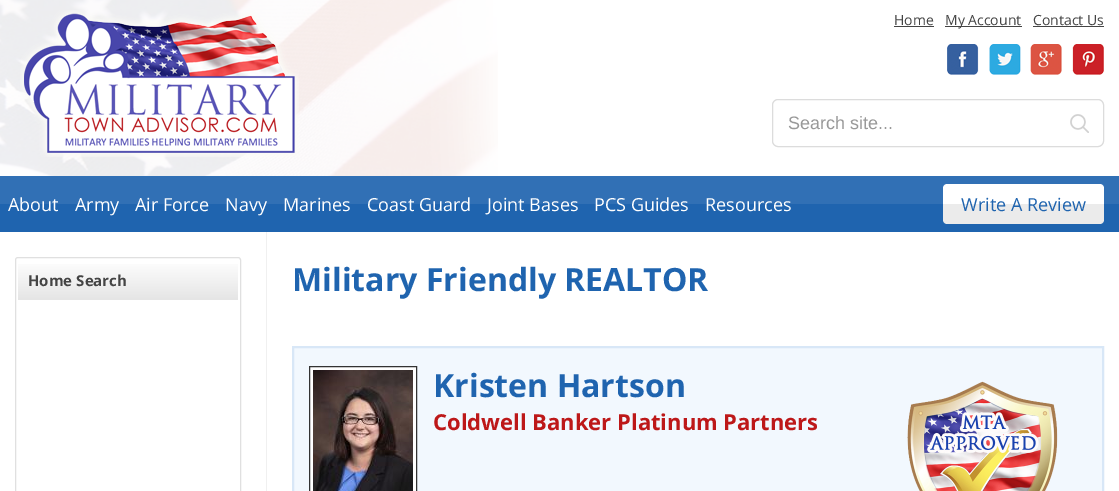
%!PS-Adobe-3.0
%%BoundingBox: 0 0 1119 491
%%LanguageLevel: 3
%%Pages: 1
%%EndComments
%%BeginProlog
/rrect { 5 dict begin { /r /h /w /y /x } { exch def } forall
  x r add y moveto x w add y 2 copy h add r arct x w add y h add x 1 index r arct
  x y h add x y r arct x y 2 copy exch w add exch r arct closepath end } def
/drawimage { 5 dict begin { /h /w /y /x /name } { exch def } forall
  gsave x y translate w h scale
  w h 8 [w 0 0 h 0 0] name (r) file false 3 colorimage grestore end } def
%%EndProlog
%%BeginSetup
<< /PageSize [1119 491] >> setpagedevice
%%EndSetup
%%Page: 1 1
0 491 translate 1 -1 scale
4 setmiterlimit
1 setgray
0 0 1119 491 rectfill
(images/1.raw) 0 0 498 176 drawimage
(images/2.raw) 20 10 279 147 drawimage
0.267 setgray
894 26 40 1 rectfill
945 26 77 1 rectfill
1033 26 71 1 rectfill
(images/3.raw) 947 44 32 31 drawimage
(images/4.raw) 989 44 32 31 drawimage
(images/5.raw) 1030 44 32 31 drawimage
(images/6.raw) 1072 44 32 31 drawimage
0.863 setgray
772.5 99.5 331 47 5.5 rrect stroke
(images/7.raw) 1070 114 19 19 drawimage
0.192 0.439 0.71 setrgbcolor
0 176 1119 28 rectfill
0.122 0.392 0.686 setrgbcolor
0 204 1119 28 rectfill
1 setgray
newpath 947 184 moveto 1100 184 lineto 1102 184 1104 186 1104 188 curveto 1104 204 lineto 943 204 lineto 943 188 lineto 943 186 945 184 947 184 curveto closepath fill
0.922 setgray
newpath 943 204 moveto 1104 204 lineto 1104 220 lineto 1104 222 1102 224 1100 224 curveto 947 224 lineto 945 224 943 222 943 220 curveto closepath fill
0.941 setgray
266 232 1 259 rectfill
0.878 setgray
15.5 257.5 225 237 2.5 rrect stroke
gsave newpath 18 264 moveto 238 264 lineto 238 300 lineto 18 300 lineto closepath clip newpath
<< /ShadingType 2 /ColorSpace /DeviceRGB /Coords [128 260 128 300] /Extend [true true] /Function << /FunctionType 2 /Domain [0 1] /C0 [1 1 1] /C1 [0.898 0.898 0.898] /N 1 >> >> shfill grestore
0.949 0.973 0.996 setrgbcolor
newpath 293 347 moveto 1103 347 lineto 1103 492 lineto 293 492 lineto closepath gsave fill grestore
0.847 0.906 0.969 setrgbcolor
2 setlinewidth
stroke
1 setgray
newpath 309.5 366.5 moveto 416.5 366.5 lineto 416.5 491.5 lineto 309.5 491.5 lineto closepath gsave fill grestore
0.2 setgray
1 setlinewidth
stroke
(images/8.raw) 313 370 100 121 drawimage
(images/9.raw) 907 381 151 110 drawimage
/OpenSans-Regular [14 0 0 -14 0 0] selectfont
0.267 setgray
894 25 moveto (Home) show
945 25 moveto (My Account) show
1033 25 moveto (Contact Us) show
/LiberationSans-Regular [18 0 0 -18 0 0] selectfont
0.6 setgray
788 129 moveto (Search site...) show
/OpenSans-Regular [18 0 0 -18 0 0] selectfont
1 setgray
8 211 moveto (About) show
75 211 moveto (Army) show
135 211 moveto (Air Force) show
225 211 moveto (Navy) show
283 211 moveto (Marines) show
367 211 moveto (Coast Guard) show
487 211 moveto (Joint Bases) show
594 211 moveto (PCS Guides) show
705 211 moveto (Resources) show
0.122 0.392 0.686 setrgbcolor
961 211 moveto (Write A Review) show
/OpenSans-Bold [15 0 0 -15 0 0] selectfont
0.267 setgray
28 286 moveto (Home Search) show
/OpenSans-Bold [32 0 0 -32 0 0] selectfont
0.122 0.392 0.686 setrgbcolor
292 291 moveto (Military Friendly REALTOR) show
433 397 moveto (Kristen Hartson) show
/OpenSans-Bold [22 0 0 -22 0 0] selectfont
0.741 0.094 0.098 setrgbcolor
433 430 moveto (Coldwell Banker Platinum Partners) show
showpage
%%EOF
